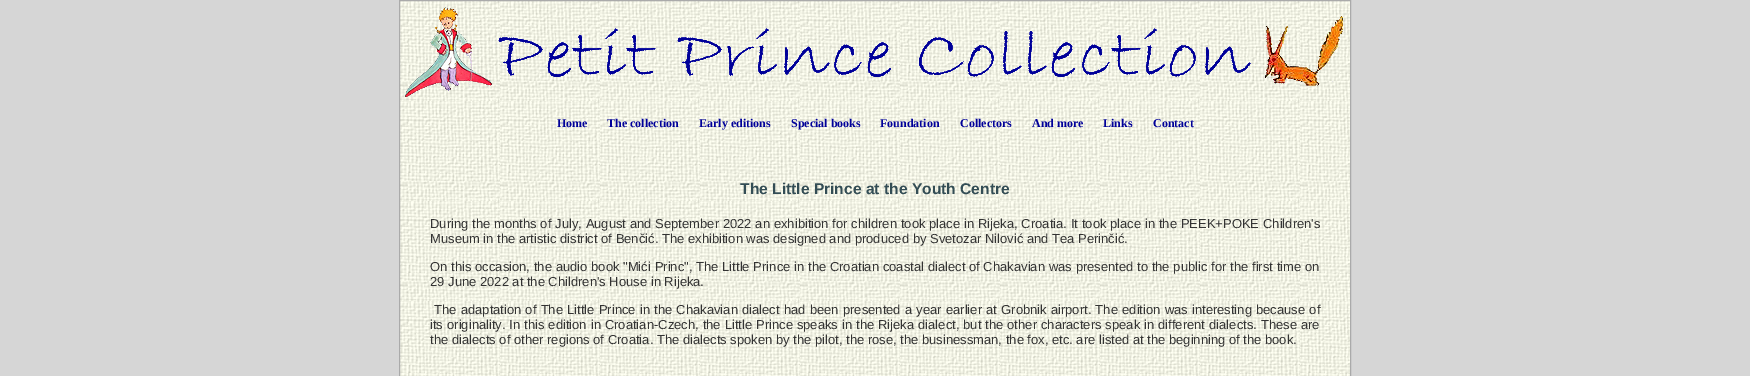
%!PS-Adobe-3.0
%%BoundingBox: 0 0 1750 376
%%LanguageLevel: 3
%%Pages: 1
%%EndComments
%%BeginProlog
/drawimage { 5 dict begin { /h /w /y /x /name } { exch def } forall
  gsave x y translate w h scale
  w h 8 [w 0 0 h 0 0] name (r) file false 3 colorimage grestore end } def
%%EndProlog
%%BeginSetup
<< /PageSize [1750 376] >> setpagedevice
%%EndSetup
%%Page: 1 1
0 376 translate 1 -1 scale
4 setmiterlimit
0.839 setgray
0 0 1750 376 rectfill
(images/1.raw) 400 1 950 375 drawimage
0.667 setgray
399.5 0.5 951 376 rectstroke
(images/2.raw) 405 7 938 90 drawimage
/LiberationSerif-Bold [12 0 0 -12 0 0] selectfont
0 0 0.6 setrgbcolor
557 127 moveto (Home) show
607 127 moveto (The collection) show
699 127 moveto (Early editions) show
791 127 moveto (Special books) show
880 127 moveto (Foundation) show
960 127 moveto (Collectors) show
1032 127 moveto (And more) show
1103 127 moveto (Links) show
1153 127 moveto (Contact) show
/LiberationSans-Bold [15.6 0 0 -15.6 0 0] selectfont
0.2 0.302 0.333 setrgbcolor
740 194 moveto (The Little Prince at the Youth Centre) show
/LiberationSans-Regular [13 0 0 -13 0 0] selectfont
0.2 setgray
430 228 moveto 0.2 0 32 (During the months of July, August and September 2022 an exhibition for children took place in Rijeka, Croatia. It took place in the PEEK+POKE Children's) widthshow
430 243 moveto (Museum in the artistic district of Benčić. The exhibition was designed and produced by Svetozar Nilović and Tea Perinčić.) show
430 271 moveto 0.15 0 32 (On this occasion, the audio book "Mići Princ", The Little Prince in the Croatian coastal dialect of Chakavian was presented to the public for the first time on) widthshow
430 286 moveto (29 June 2022 at the Children's House in Rijeka.) show
434 314 moveto 0.6 0 32 (The adaptation of The Little Prince in the Chakavian dialect had been presented a year earlier at Grobnik airport. The edition was interesting because of) widthshow
430 329 moveto 0.35 0 32 (its originality. In this edition in Croatian-Czech, the Little Prince speaks in the Rijeka dialect, but the other characters speak in different dialects. These are) widthshow
430 344 moveto (the dialects of other regions of Croatia. The dialects spoken by the pilot, the rose, the businessman, the fox, etc. are listed at the beginning of the book.) show
showpage
%%EOF
